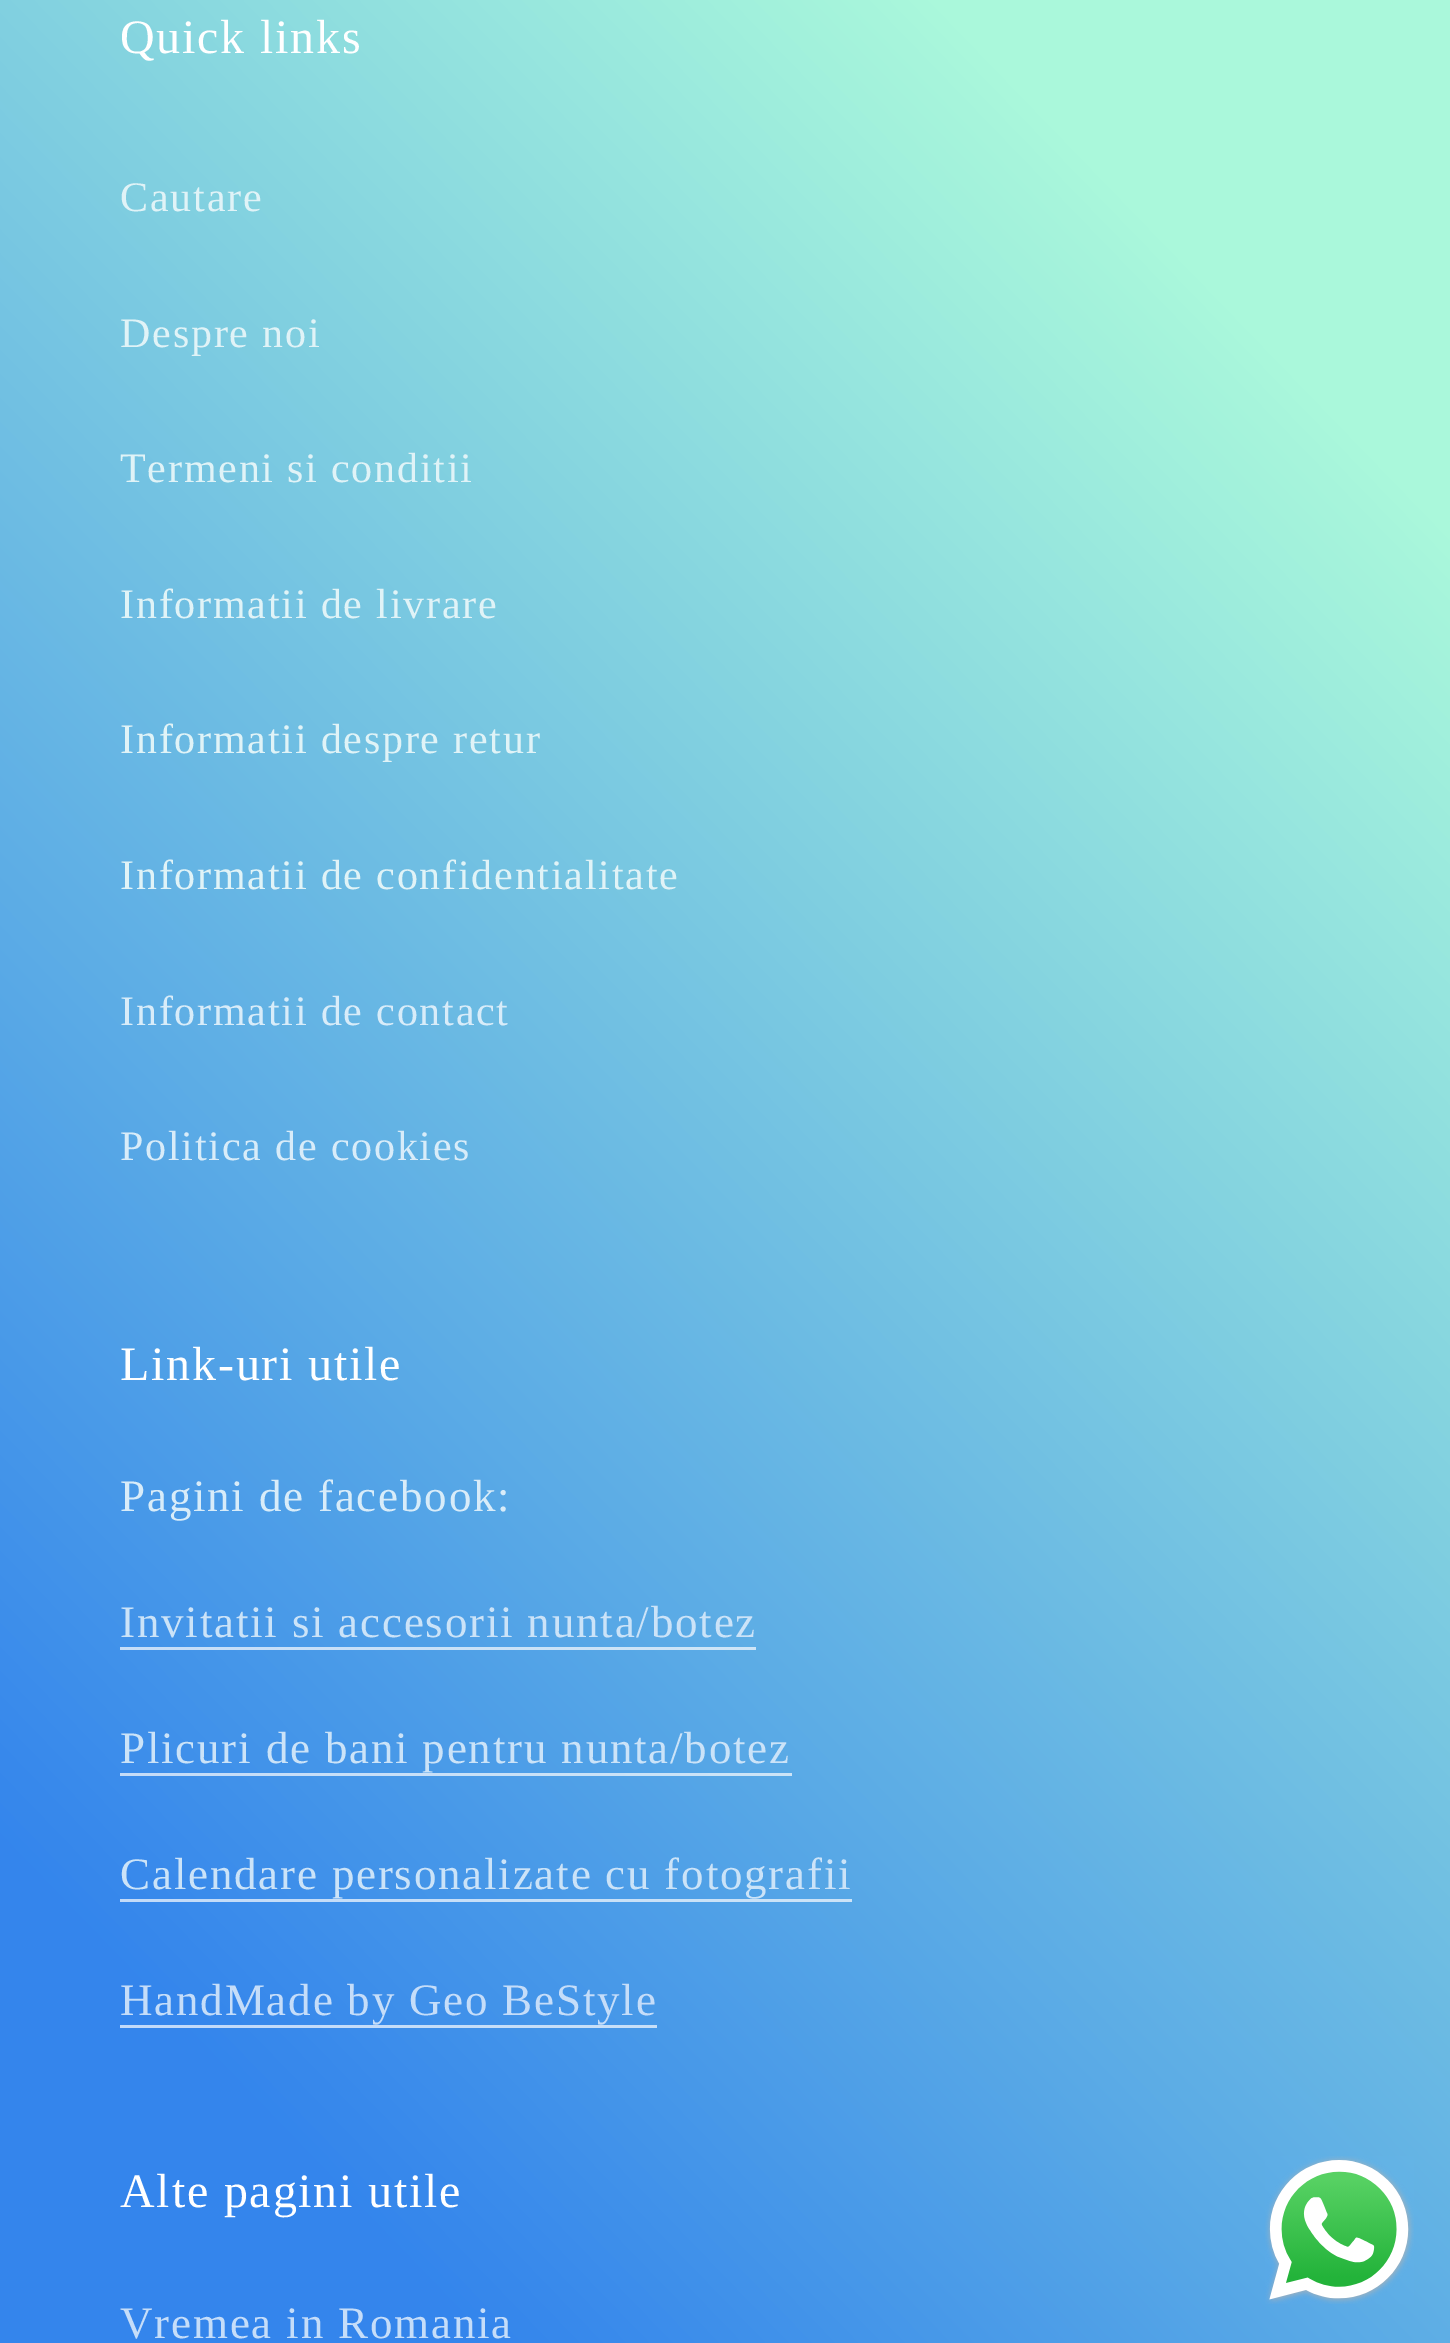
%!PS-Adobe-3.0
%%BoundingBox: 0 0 1450 2343
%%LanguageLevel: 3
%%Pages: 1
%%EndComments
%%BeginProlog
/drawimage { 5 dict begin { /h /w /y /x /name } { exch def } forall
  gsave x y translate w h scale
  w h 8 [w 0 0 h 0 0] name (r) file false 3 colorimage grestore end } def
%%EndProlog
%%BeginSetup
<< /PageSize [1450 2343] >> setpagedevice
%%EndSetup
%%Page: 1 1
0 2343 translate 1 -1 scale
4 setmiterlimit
1 setgray
0 0 1450 2343 rectfill
gsave newpath 0 0 moveto 1450 0 lineto 1450 2343 lineto 0 2343 lineto closepath clip newpath
<< /ShadingType 2 /ColorSpace /DeviceRGB /Coords [-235 2100 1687 243] /Extend [true true] /Function << /FunctionType 3 /Domain [0 1] /Functions [<< /FunctionType 2 /Domain [0 1] /C0 [0.204 0.522 0.925] /C1 [0.204 0.522 0.925] /N 1 >> << /FunctionType 2 /Domain [0 1] /C0 [0.204 0.522 0.925] /C1 [0.667 0.973 0.859] /N 1 >> << /FunctionType 2 /Domain [0 1] /C0 [0.667 0.973 0.859] /C1 [0.667 0.973 0.859] /N 1 >>] /Bounds [0.13 0.86] /Encode [0 1 0 1 0 1] >> >> shfill grestore
gsave newpath 120 2025 moveto 657 2025 lineto 657 2028 lineto 120 2028 lineto closepath clip newpath
<< /ShadingType 2 /ColorSpace /DeviceRGB /Coords [-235 2100 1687 243] /Extend [true true] /Function << /FunctionType 3 /Domain [0 1] /Functions [<< /FunctionType 2 /Domain [0 1] /C0 [0.761 0.855 0.976] /C1 [0.761 0.855 0.976] /N 1 >> << /FunctionType 2 /Domain [0 1] /C0 [0.761 0.855 0.976] /C1 [0.902 0.992 0.957] /N 1 >> << /FunctionType 2 /Domain [0 1] /C0 [0.902 0.992 0.957] /C1 [0.902 0.992 0.957] /N 1 >>] /Bounds [0.13 0.86] /Encode [0 1 0 1 0 1] >> >> shfill grestore
gsave newpath 120 1899 moveto 852 1899 lineto 852 1902 lineto 120 1902 lineto closepath clip newpath
<< /ShadingType 2 /ColorSpace /DeviceRGB /Coords [-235 2100 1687 243] /Extend [true true] /Function << /FunctionType 3 /Domain [0 1] /Functions [<< /FunctionType 2 /Domain [0 1] /C0 [0.761 0.855 0.976] /C1 [0.761 0.855 0.976] /N 1 >> << /FunctionType 2 /Domain [0 1] /C0 [0.761 0.855 0.976] /C1 [0.902 0.992 0.957] /N 1 >> << /FunctionType 2 /Domain [0 1] /C0 [0.902 0.992 0.957] /C1 [0.902 0.992 0.957] /N 1 >>] /Bounds [0.13 0.86] /Encode [0 1 0 1 0 1] >> >> shfill grestore
gsave newpath 120 1773 moveto 792 1773 lineto 792 1776 lineto 120 1776 lineto closepath clip newpath
<< /ShadingType 2 /ColorSpace /DeviceRGB /Coords [-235 2100 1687 243] /Extend [true true] /Function << /FunctionType 3 /Domain [0 1] /Functions [<< /FunctionType 2 /Domain [0 1] /C0 [0.761 0.855 0.976] /C1 [0.761 0.855 0.976] /N 1 >> << /FunctionType 2 /Domain [0 1] /C0 [0.761 0.855 0.976] /C1 [0.902 0.992 0.957] /N 1 >> << /FunctionType 2 /Domain [0 1] /C0 [0.902 0.992 0.957] /C1 [0.902 0.992 0.957] /N 1 >>] /Bounds [0.13 0.86] /Encode [0 1 0 1 0 1] >> >> shfill grestore
gsave newpath 120 1647 moveto 756 1647 lineto 756 1650 lineto 120 1650 lineto closepath clip newpath
<< /ShadingType 2 /ColorSpace /DeviceRGB /Coords [-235 2100 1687 243] /Extend [true true] /Function << /FunctionType 3 /Domain [0 1] /Functions [<< /FunctionType 2 /Domain [0 1] /C0 [0.761 0.855 0.976] /C1 [0.761 0.855 0.976] /N 1 >> << /FunctionType 2 /Domain [0 1] /C0 [0.761 0.855 0.976] /C1 [0.902 0.992 0.957] /N 1 >> << /FunctionType 2 /Domain [0 1] /C0 [0.902 0.992 0.957] /C1 [0.902 0.992 0.957] /N 1 >>] /Bounds [0.13 0.86] /Encode [0 1 0 1 0 1] >> >> shfill grestore
(images/1.raw) 1265 2156 149 148 drawimage
/LiberationSerif-Regular [48 0 0 -48 0 0] selectfont
120 53 moveto 1.8 0 (Quick links) ashow
/LiberationSerif-Regular [42 0 0 -42 0 0] selectfont
0.878 0.953 0.969 setrgbcolor
120 211 moveto 1.8 0 (Cautare) ashow
120 347 moveto 1.8 0 (Despre noi) ashow
120 482 moveto 1.8 0 (Termeni si conditii) ashow
120 618 moveto 1.8 0 (Informatii de livrare) ashow
120 753 moveto 1.8 0 (Informatii despre retur) ashow
120 889 moveto 1.8 0 (Informatii de confidentialitate) ashow
0.847 0.925 0.976 setrgbcolor
120 1025 moveto 1.8 0 (Informatii de contact) ashow
120 1160 moveto 1.8 0 (Politica de cookies) ashow
/LiberationSerif-Regular [48 0 0 -48 0 0] selectfont
1 setgray
120 1380 moveto 1.8 0 (Link-uri utile) ashow
/LiberationSerif-Regular [45 0 0 -45 0 0] selectfont
0.847 0.925 0.976 setrgbcolor
120 1511 moveto 1.8 0 (Pagini de facebook:) ashow
0.796 0.89 0.973 setrgbcolor
120 1637 moveto 1.8 0 (Invitatii si accesorii nunta/botez) ashow
120 1763 moveto 1.8 0 (Plicuri de bani pentru nunta/botez) ashow
120 1889 moveto 1.8 0 (Calendare personalizate cu fotografii) ashow
0.773 0.867 0.976 setrgbcolor
120 2015 moveto 1.8 0 (HandMade by Geo BeStyle) ashow
/LiberationSerif-Regular [48 0 0 -48 0 0] selectfont
1 setgray
120 2207 moveto 1.8 0 (Alte pagini utile) ashow
/LiberationSerif-Regular [45 0 0 -45 0 0] selectfont
0.773 0.867 0.976 setrgbcolor
120 2338 moveto 1.8 0 (Vremea in Romania) ashow
showpage
%%EOF
